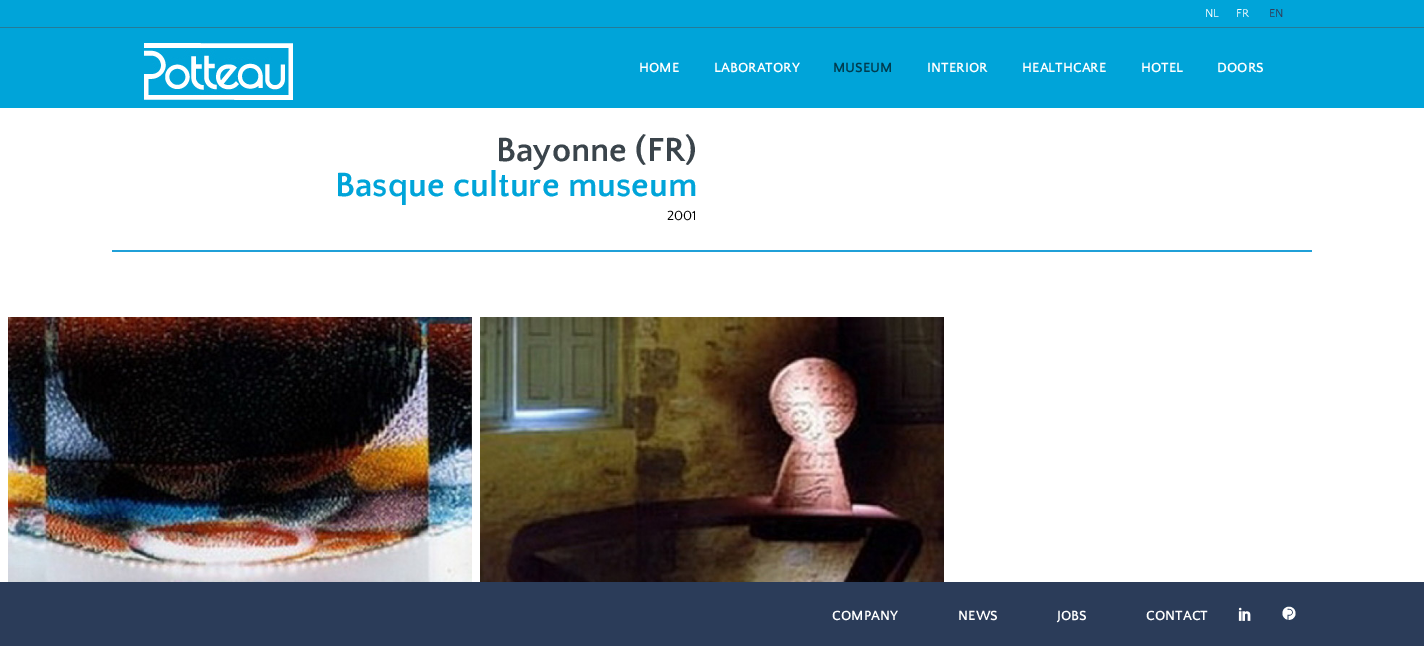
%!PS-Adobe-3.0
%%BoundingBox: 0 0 1424 646
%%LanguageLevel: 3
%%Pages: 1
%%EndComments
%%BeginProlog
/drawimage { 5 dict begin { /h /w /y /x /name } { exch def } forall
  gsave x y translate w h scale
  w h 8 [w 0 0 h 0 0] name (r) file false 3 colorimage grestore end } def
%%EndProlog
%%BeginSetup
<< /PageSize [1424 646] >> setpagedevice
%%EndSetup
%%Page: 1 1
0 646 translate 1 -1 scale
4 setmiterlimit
1 setgray
0 0 1424 646 rectfill
0 0.643 0.851 setrgbcolor
0 0 1424 27 rectfill
0 28 1424 80 rectfill
0.145 0.482 0.592 setrgbcolor
0 27 1424 1 rectfill
(images/1.raw) 144 43 149 57 drawimage
0.125 0.627 0.847 setrgbcolor
112 250 1200 2 rectfill
(images/2.raw) 8 317 464 265 drawimage
(images/3.raw) 480 317 464 265 drawimage
0.169 0.235 0.349 setrgbcolor
0 582 1424 64 rectfill
(images/4.raw) 1238 607 13 14 drawimage
(images/5.raw) 1282 604 14 16 drawimage
/QuattrocentoSans-Regular [12 0 0 -12 0 0] selectfont
1 setgray
1205 17 moveto (NL) show
1236 17 moveto (FR) show
0.192 0.243 0.353 setrgbcolor
1269 17 moveto (EN) show
/QuattrocentoSans-Bold [14 0 0 -14 0 0] selectfont
1 setgray
639 72 moveto (HOME) show
714 72 moveto (LABORATORY) show
0 0.235 0.31 setrgbcolor
833 72 moveto (MUSEUM) show
1 setgray
927 72 moveto (INTERIOR) show
1022 72 moveto (HEALTHCARE) show
1141 72 moveto (HOTEL) show
1217 72 moveto (DOORS) show
/QuattrocentoSans-Bold [35 0 0 -35 0 0] selectfont
0.227 0.267 0.294 setrgbcolor
496 161 moveto (Bayonne \(FR\)) show
0 0.643 0.851 setrgbcolor
335 196 moveto (Basque culture museum) show
/QuattrocentoSans-Regular [14 0 0 -14 0 0] selectfont
0 setgray
667 220 moveto (2001) show
/QuattrocentoSans-Bold [14 0 0 -14 0 0] selectfont
1 setgray
832 620 moveto (COMPANY) show
958 620 moveto (NEWS) show
1057 620 moveto (JOBS) show
1146 620 moveto (CONTACT) show
showpage
%%EOF
